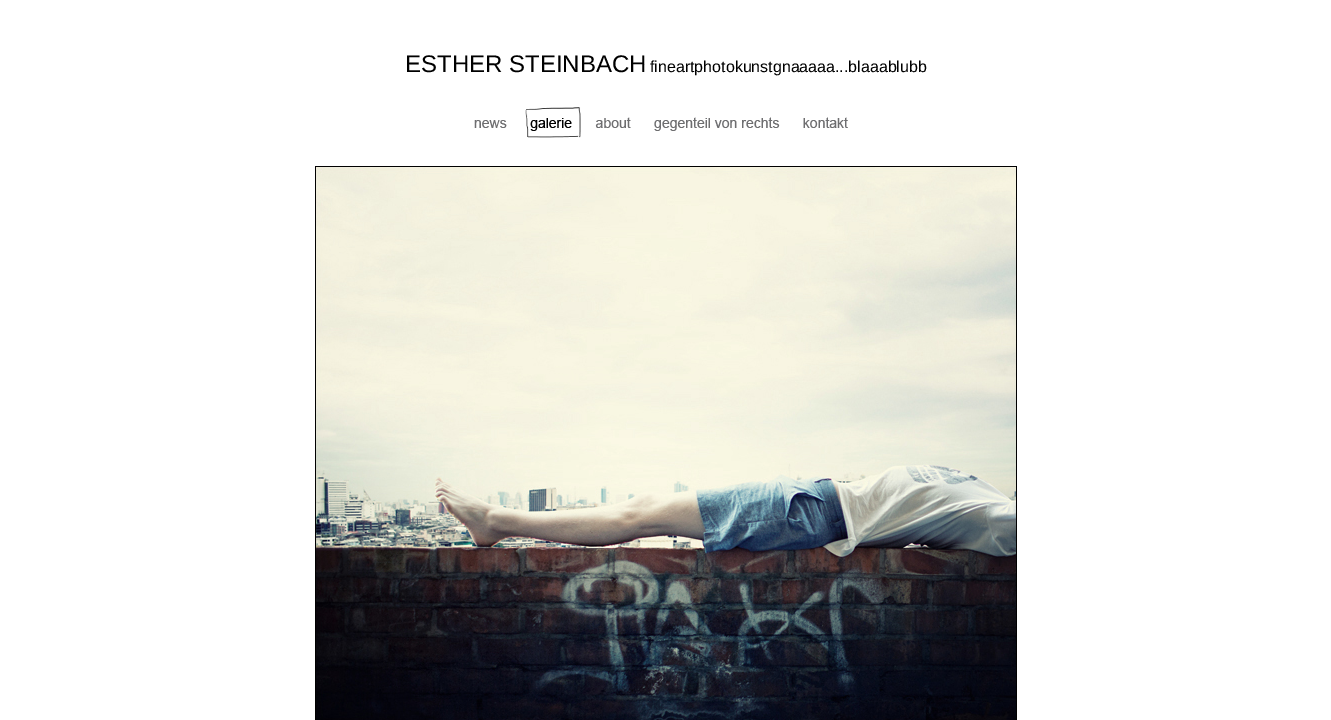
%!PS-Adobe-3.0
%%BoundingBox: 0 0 1331 720
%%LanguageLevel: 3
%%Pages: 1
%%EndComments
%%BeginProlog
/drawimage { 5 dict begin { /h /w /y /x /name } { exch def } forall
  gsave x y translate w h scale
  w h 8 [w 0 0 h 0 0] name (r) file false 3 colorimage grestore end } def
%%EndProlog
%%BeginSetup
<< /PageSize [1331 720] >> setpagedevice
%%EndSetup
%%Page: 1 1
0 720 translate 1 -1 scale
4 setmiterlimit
1 setgray
0 0 1331 720 rectfill
(images/1.raw) 474 120 33 8 drawimage
(images/2.raw) 525 107 56 31 drawimage
(images/3.raw) 595 117 36 11 drawimage
(images/4.raw) 654 117 126 14 drawimage
(images/5.raw) 803 117 45 11 drawimage
(images/6.raw) 315 166 702 554 drawimage
/LiberationSans-Regular [24 0 0 -24 0 0] selectfont
0 setgray
405 72 moveto (ESTHER STEINBACH) show
/LiberationSans-Regular [16 0 0 -16 0 0] selectfont
650 72 moveto (fineartphotokunstgnaaaaa...blaaablubb) show
showpage
%%EOF
